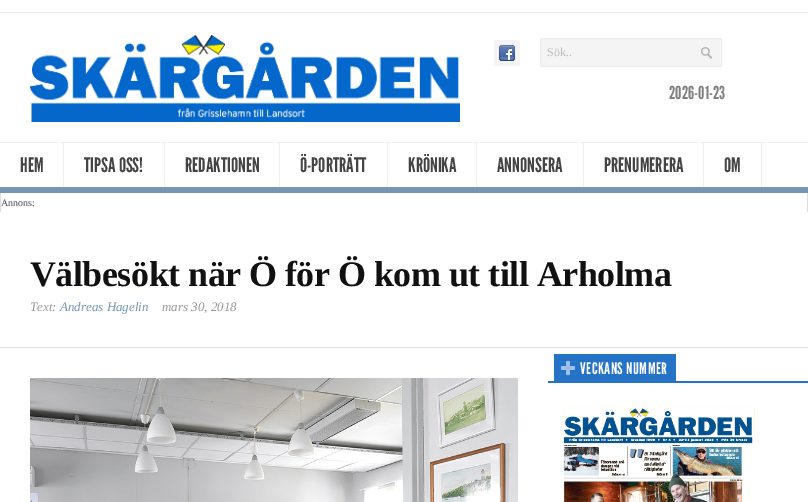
%!PS-Adobe-3.0
%%BoundingBox: 0 0 808 502
%%LanguageLevel: 3
%%Pages: 1
%%EndComments
%%BeginProlog
/rrect { 5 dict begin { /r /h /w /y /x } { exch def } forall
  x r add y moveto x w add y 2 copy h add r arct x w add y h add x 1 index r arct
  x y h add x y r arct x y 2 copy exch w add exch r arct closepath end } def
/drawimage { 5 dict begin { /h /w /y /x /name } { exch def } forall
  gsave x y translate w h scale
  w h 8 [w 0 0 h 0 0] name (r) file false 3 colorimage grestore end } def
%%EndProlog
%%BeginSetup
<< /PageSize [808 502] >> setpagedevice
%%EndSetup
%%Page: 1 1
0 502 translate 1 -1 scale
4 setmiterlimit
1 setgray
0 0 808 502 rectfill
0.933 setgray
0 12 808 1 rectfill
(images/1.raw) 30 35 430 87 drawimage
0.957 setgray
494 40 26 26 2 rrect fill
(images/2.raw) 499 45 16 16 drawimage
540 38 182 29 2 rrect fill
(images/3.raw) 701 47 11 12 drawimage
0.933 setgray
540.5 38.5 181 28 1.5 rrect stroke
0 142 808 1 rectfill
63 143 1 44 rectfill
164 143 1 44 rectfill
279 143 1 44 rectfill
387 143 1 44 rectfill
476 143 1 44 rectfill
583 143 1 44 rectfill
703 143 1 44 rectfill
761 143 1 44 rectfill
0.463 0.592 0.702 setrgbcolor
0 187 808 6 rectfill
0.867 setgray
807 193 1 19 rectfill
0 193 1 19 rectfill
0 347 808 1 rectfill
0.141 0.451 0.78 setrgbcolor
548 381 260 2 rectfill
554 354 122 27 rectfill
(images/4.raw) 561 361 14 14 drawimage
(images/5.raw) 563 407 192 95 drawimage
(images/6.raw) 30 378 488 124 drawimage
/LiberationSerif-Regular [12 0 0 -12 0 0] selectfont
0.733 setgray
547 56 moveto (Sök..) show
/LeagueGothic-Regular [18 0 0 -18 0 0] selectfont
0.502 setgray
669 99 moveto (2026-01-23) show
/LeagueGothic-Regular [20 0 0 -20 0 0] selectfont
0.267 setgray
20 172 moveto (HEM) show
84 172 moveto (TIPSA OSS!) show
185 172 moveto (REDAKTIONEN) show
300 172 moveto (Ö-PORTRÄTT) show
408 172 moveto (KRÖNIKA) show
497 172 moveto (ANNONSERA) show
604 172 moveto (PRENUMERERA) show
724 172 moveto (OM) show
/LiberationSerif-Regular [10 0 0 -10 0 0] selectfont
1 206 moveto (Annons:) show
/LiberationSerif-Bold [36 0 0 -36 0 0] selectfont
0.067 setgray
30 286 moveto -0.5 0 (Välbesökt när Ö för Ö kom ut till Arholma) ashow
/LiberationSerif-Italic [13 0 0 -13 0 0] selectfont
0.6 setgray
30 311 moveto (Text:) show
0.463 0.592 0.702 setrgbcolor
60 311 moveto (Andreas Hagelin) show
0.6 setgray
162 311 moveto (mars 30, 2018) show
/LeagueGothic-Regular [16 0 0 -16 0 0] selectfont
1 setgray
580 374 moveto 0.5 0 (VECKANS NUMMER) ashow
showpage
%%EOF
